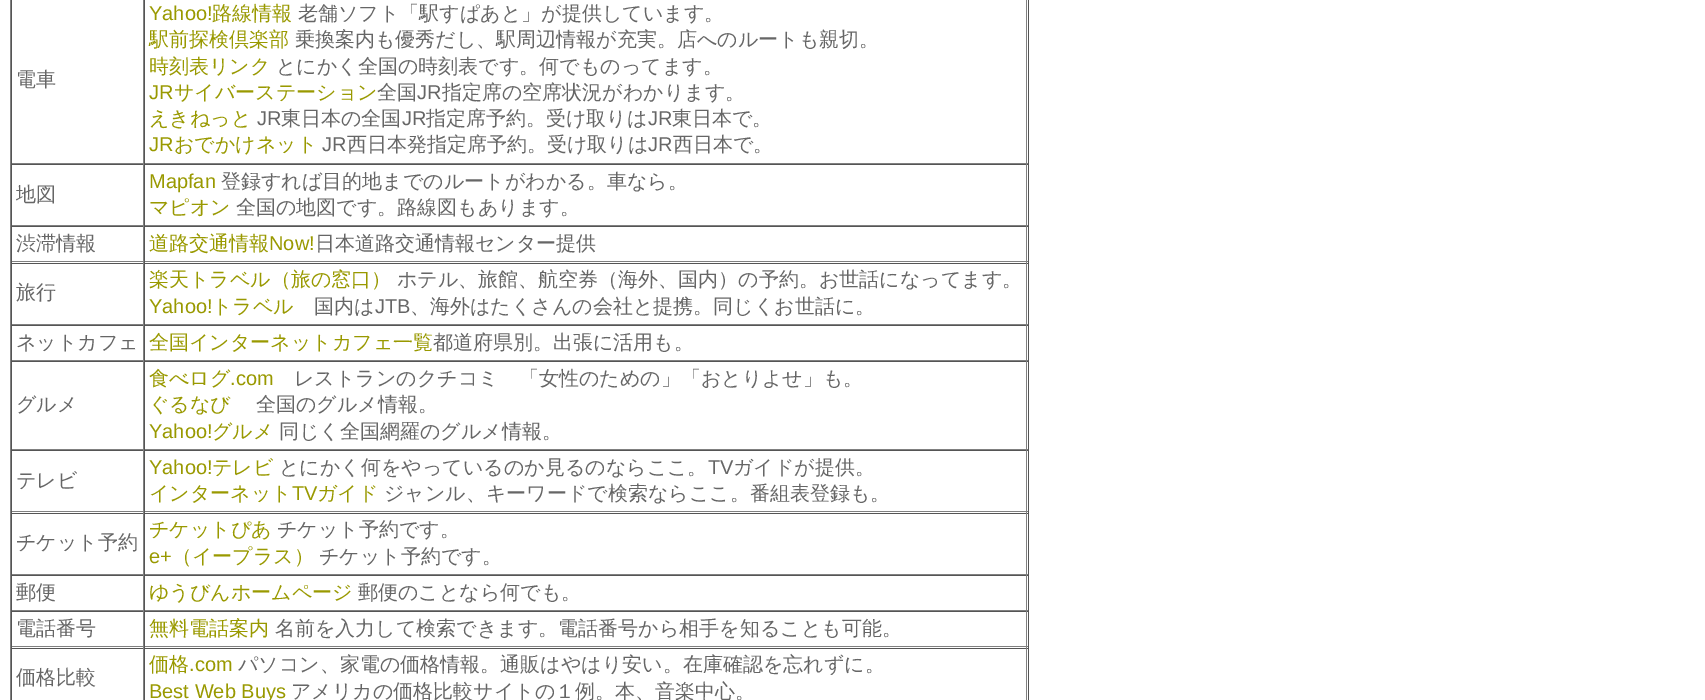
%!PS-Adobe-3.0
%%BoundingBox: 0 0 1705 700
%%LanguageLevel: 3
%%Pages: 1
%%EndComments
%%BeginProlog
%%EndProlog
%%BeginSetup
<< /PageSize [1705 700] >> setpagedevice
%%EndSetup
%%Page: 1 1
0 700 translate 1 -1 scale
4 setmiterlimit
1 setgray
0 0 1705 700 rectfill
0.333 setgray
1028 0 1 700 rectfill
0.502 setgray
10 0 1 700 rectfill
143 0 1 164 rectfill
11 163 133 1 rectfill
0.333 setgray
11 0 1 164 rectfill
0.502 setgray
1026 0 1 164 rectfill
144 163 884 1 rectfill
0.333 setgray
144 0 1 164 rectfill
11 164 1017 1 rectfill
0.502 setgray
143 164 1 62 rectfill
11 225 133 1 rectfill
0.333 setgray
11 164 1 62 rectfill
0.502 setgray
1026 164 1 62 rectfill
144 225 884 1 rectfill
0.333 setgray
144 164 1 62 rectfill
11 226 1017 1 rectfill
0.502 setgray
143 226 1 37 rectfill
11 261 133 1 rectfill
0.333 setgray
11 226 1 37 rectfill
0.502 setgray
1026 226 1 37 rectfill
144 261 884 1 rectfill
0.333 setgray
144 226 1 37 rectfill
11 263 1017 1 rectfill
0.502 setgray
143 263 1 62 rectfill
11 324 133 1 rectfill
0.333 setgray
11 263 1 62 rectfill
0.502 setgray
1026 263 1 62 rectfill
144 324 884 1 rectfill
0.333 setgray
144 263 1 62 rectfill
11 325 1017 1 rectfill
0.502 setgray
143 325 1 36 rectfill
11 360 133 1 rectfill
0.333 setgray
11 325 1 36 rectfill
0.502 setgray
1026 325 1 36 rectfill
144 360 884 1 rectfill
0.333 setgray
144 325 1 36 rectfill
11 361 1017 1 rectfill
0.502 setgray
143 361 1 89 rectfill
11 449 133 1 rectfill
0.333 setgray
11 361 1 89 rectfill
0.502 setgray
1026 361 1 89 rectfill
144 449 884 1 rectfill
0.333 setgray
144 361 1 89 rectfill
11 450 1017 1 rectfill
0.502 setgray
143 450 1 63 rectfill
11 511 133 1 rectfill
0.333 setgray
11 450 1 63 rectfill
0.502 setgray
1026 450 1 63 rectfill
144 511 884 1 rectfill
0.333 setgray
144 450 1 63 rectfill
11 513 1017 1 rectfill
0.502 setgray
143 513 1 62 rectfill
11 574 133 1 rectfill
0.333 setgray
11 513 1 62 rectfill
0.502 setgray
1026 513 1 62 rectfill
144 574 884 1 rectfill
0.333 setgray
144 513 1 62 rectfill
11 575 1017 1 rectfill
0.502 setgray
143 575 1 36 rectfill
11 610 133 1 rectfill
0.333 setgray
11 575 1 36 rectfill
0.502 setgray
1026 575 1 36 rectfill
144 610 884 1 rectfill
0.333 setgray
144 575 1 36 rectfill
11 611 1017 1 rectfill
0.502 setgray
143 611 1 37 rectfill
11 646 133 1 rectfill
0.333 setgray
11 611 1 37 rectfill
0.502 setgray
1026 611 1 37 rectfill
144 646 884 1 rectfill
0.333 setgray
144 611 1 37 rectfill
11 648 1017 1 rectfill
0.502 setgray
143 648 1 52 rectfill
0.333 setgray
11 648 1 52 rectfill
0.502 setgray
1026 648 1 52 rectfill
0.333 setgray
144 648 1 52 rectfill
/WenQuanYiZenHei-Medium [20 0 0 -20 0 0] selectfont
0.4 setgray
16 86 moveto (電車) show
/LiberationSans-Regular [20 0 0 -20 0 0] selectfont
0.6 0.6 0 setrgbcolor
149 20 moveto (Yahoo!) show
/WenQuanYiZenHei-Medium [20 0 0 -20 0 0] selectfont
212 20 moveto (路線情報) show
0.4 setgray
298 20 moveto (老舗ソフト「駅すぱあと」が提供しています。) show
0.6 0.6 0 setrgbcolor
149 46 moveto (駅前探検倶楽部) show
0.4 setgray
295 46 moveto (乗換案内も優秀だし、駅周辺情報が充実。店へのルートも親切。) show
0.6 0.6 0 setrgbcolor
149 73 moveto (時刻表リンク) show
0.4 setgray
276 73 moveto (とにかく全国の時刻表です。何でものってます。) show
/LiberationSans-Regular [20 0 0 -20 0 0] selectfont
0.6 0.6 0 setrgbcolor
149 99 moveto (JR) show
/WenQuanYiZenHei-Medium [20 0 0 -20 0 0] selectfont
174 99 moveto (サイバーステーション) show
0.4 setgray
377 99 moveto (全国) show
/LiberationSans-Regular [20 0 0 -20 0 0] selectfont
417 99 moveto (JR) show
/WenQuanYiZenHei-Medium [20 0 0 -20 0 0] selectfont
442 99 moveto (指定席の空席状況がわかります。) show
0.6 0.6 0 setrgbcolor
149 125 moveto (えきねっと) show
/LiberationSans-Regular [20 0 0 -20 0 0] selectfont
0.4 setgray
257 125 moveto (JR) show
/WenQuanYiZenHei-Medium [20 0 0 -20 0 0] selectfont
281 125 moveto (東日本の全国) show
/LiberationSans-Regular [20 0 0 -20 0 0] selectfont
402 125 moveto (JR) show
/WenQuanYiZenHei-Medium [20 0 0 -20 0 0] selectfont
426 125 moveto (指定席予約。受け取りは) show
/LiberationSans-Regular [20 0 0 -20 0 0] selectfont
648 125 moveto (JR) show
/WenQuanYiZenHei-Medium [20 0 0 -20 0 0] selectfont
672 125 moveto (東日本で。) show
/LiberationSans-Regular [20 0 0 -20 0 0] selectfont
0.6 0.6 0 setrgbcolor
149 151 moveto (JR) show
/WenQuanYiZenHei-Medium [20 0 0 -20 0 0] selectfont
174 151 moveto (おでかけネット) show
/LiberationSans-Regular [20 0 0 -20 0 0] selectfont
0.4 setgray
322 151 moveto (JR) show
/WenQuanYiZenHei-Medium [20 0 0 -20 0 0] selectfont
347 151 moveto (西日本発指定席予約。受け取りは) show
/LiberationSans-Regular [20 0 0 -20 0 0] selectfont
648 151 moveto (JR) show
/WenQuanYiZenHei-Medium [20 0 0 -20 0 0] selectfont
673 151 moveto (西日本で。) show
16 201 moveto (地図) show
/LiberationSans-Regular [20 0 0 -20 0 0] selectfont
0.6 0.6 0 setrgbcolor
149 188 moveto (Mapfan) show
/WenQuanYiZenHei-Medium [20 0 0 -20 0 0] selectfont
0.4 setgray
221 188 moveto (登録すれば目的地までのルートがわかる。車なら。) show
0.6 0.6 0 setrgbcolor
149 214 moveto (マピオン) show
0.4 setgray
236 214 moveto (全国の地図です。路線図もあります。) show
16 250 moveto (渋滞情報) show
0.6 0.6 0 setrgbcolor
149 250 moveto (道路交通情報) show
/LiberationSans-Regular [20 0 0 -20 0 0] selectfont
269 250 moveto (Now!) show
/WenQuanYiZenHei-Medium [20 0 0 -20 0 0] selectfont
0.4 setgray
315 250 moveto (日本道路交通情報センター提供) show
16 299 moveto (旅行) show
0.6 0.6 0 setrgbcolor
149 286 moveto (楽天トラベル（旅の窓口）) show
0.4 setgray
397 286 moveto (ホテル、旅館、航空券（海外、国内）の予約。お世話になってます。) show
/LiberationSans-Regular [20 0 0 -20 0 0] selectfont
0.6 0.6 0 setrgbcolor
149 313 moveto (Yahoo!) show
/WenQuanYiZenHei-Medium [20 0 0 -20 0 0] selectfont
212 313 moveto (トラベル) show
0.4 setgray
314 313 moveto (国内は) show
/LiberationSans-Regular [20 0 0 -20 0 0] selectfont
375 313 moveto (JTB) show
/WenQuanYiZenHei-Medium [20 0 0 -20 0 0] selectfont
410 313 moveto (、海外はたくさんの会社と提携。同じくお世話に。) show
16 349 moveto (ネットカフェ) show
0.6 0.6 0 setrgbcolor
149 349 moveto (全国インターネットカフェ一覧) show
0.4 setgray
433 349 moveto (都道府県別。出張に活用も。) show
16 411 moveto (グルメ) show
0.6 0.6 0 setrgbcolor
149 385 moveto (食べログ) show
/LiberationSans-Regular [20 0 0 -20 0 0] selectfont
230 385 moveto (.com) show
/WenQuanYiZenHei-Medium [20 0 0 -20 0 0] selectfont
0.4 setgray
294 385 moveto (レストランのクチコミ　「女性のための」「おとりよせ」も。) show
0.6 0.6 0 setrgbcolor
149 411 moveto (ぐるなび) show
0.4 setgray
256 411 moveto (全国のグルメ情報。) show
/LiberationSans-Regular [20 0 0 -20 0 0] selectfont
0.6 0.6 0 setrgbcolor
149 438 moveto (Yahoo!) show
/WenQuanYiZenHei-Medium [20 0 0 -20 0 0] selectfont
212 438 moveto (グルメ) show
0.4 setgray
279 438 moveto (同じく全国網羅のグルメ情報。) show
16 487 moveto (テレビ) show
/LiberationSans-Regular [20 0 0 -20 0 0] selectfont
0.6 0.6 0 setrgbcolor
149 474 moveto (Yahoo!) show
/WenQuanYiZenHei-Medium [20 0 0 -20 0 0] selectfont
212 474 moveto (テレビ) show
0.4 setgray
279 474 moveto (とにかく何をやっているのか見るのならここ。) show
/LiberationSans-Regular [20 0 0 -20 0 0] selectfont
708 474 moveto (TV) show
/WenQuanYiZenHei-Medium [20 0 0 -20 0 0] selectfont
733 474 moveto (ガイドが提供。) show
0.6 0.6 0 setrgbcolor
149 500 moveto (インターネット) show
/LiberationSans-Regular [20 0 0 -20 0 0] selectfont
292 500 moveto (TV) show
/WenQuanYiZenHei-Medium [20 0 0 -20 0 0] selectfont
317 500 moveto (ガイド) show
0.4 setgray
384 500 moveto (ジャンル、キーワードで検索ならここ。番組表登録も。) show
16 549 moveto (チケット予約) show
0.6 0.6 0 setrgbcolor
149 536 moveto (チケットぴあ) show
0.4 setgray
277 536 moveto (チケット予約です。) show
/LiberationSans-Regular [20 0 0 -20 0 0] selectfont
0.6 0.6 0 setrgbcolor
149 563 moveto (e+) show
/WenQuanYiZenHei-Medium [20 0 0 -20 0 0] selectfont
172 563 moveto (（イープラス）) show
0.4 setgray
319 563 moveto (チケット予約です。) show
16 599 moveto (郵便) show
0.6 0.6 0 setrgbcolor
149 599 moveto (ゆうびんホームページ) show
0.4 setgray
358 599 moveto (郵便のことなら何でも。) show
16 635 moveto (電話番号) show
0.6 0.6 0 setrgbcolor
149 635 moveto (無料電話案内) show
0.4 setgray
275 635 moveto (名前を入力して検索できます。電話番号から相手を知ることも可能。) show
16 684 moveto (価格比較) show
0.6 0.6 0 setrgbcolor
149 671 moveto (価格) show
/LiberationSans-Regular [20 0 0 -20 0 0] selectfont
189 671 moveto (.com) show
/WenQuanYiZenHei-Medium [20 0 0 -20 0 0] selectfont
0.4 setgray
238 671 moveto (パソコン、家電の価格情報。通販はやはり安い。在庫確認を忘れずに。) show
/LiberationSans-Regular [20 0 0 -20 0 0] selectfont
0.6 0.6 0 setrgbcolor
149 698 moveto (Best Web Buys) show
/WenQuanYiZenHei-Medium [20 0 0 -20 0 0] selectfont
0.4 setgray
291 698 moveto (アメリカの価格比較サイトの１例。本、音楽中心。) show
showpage
%%EOF
